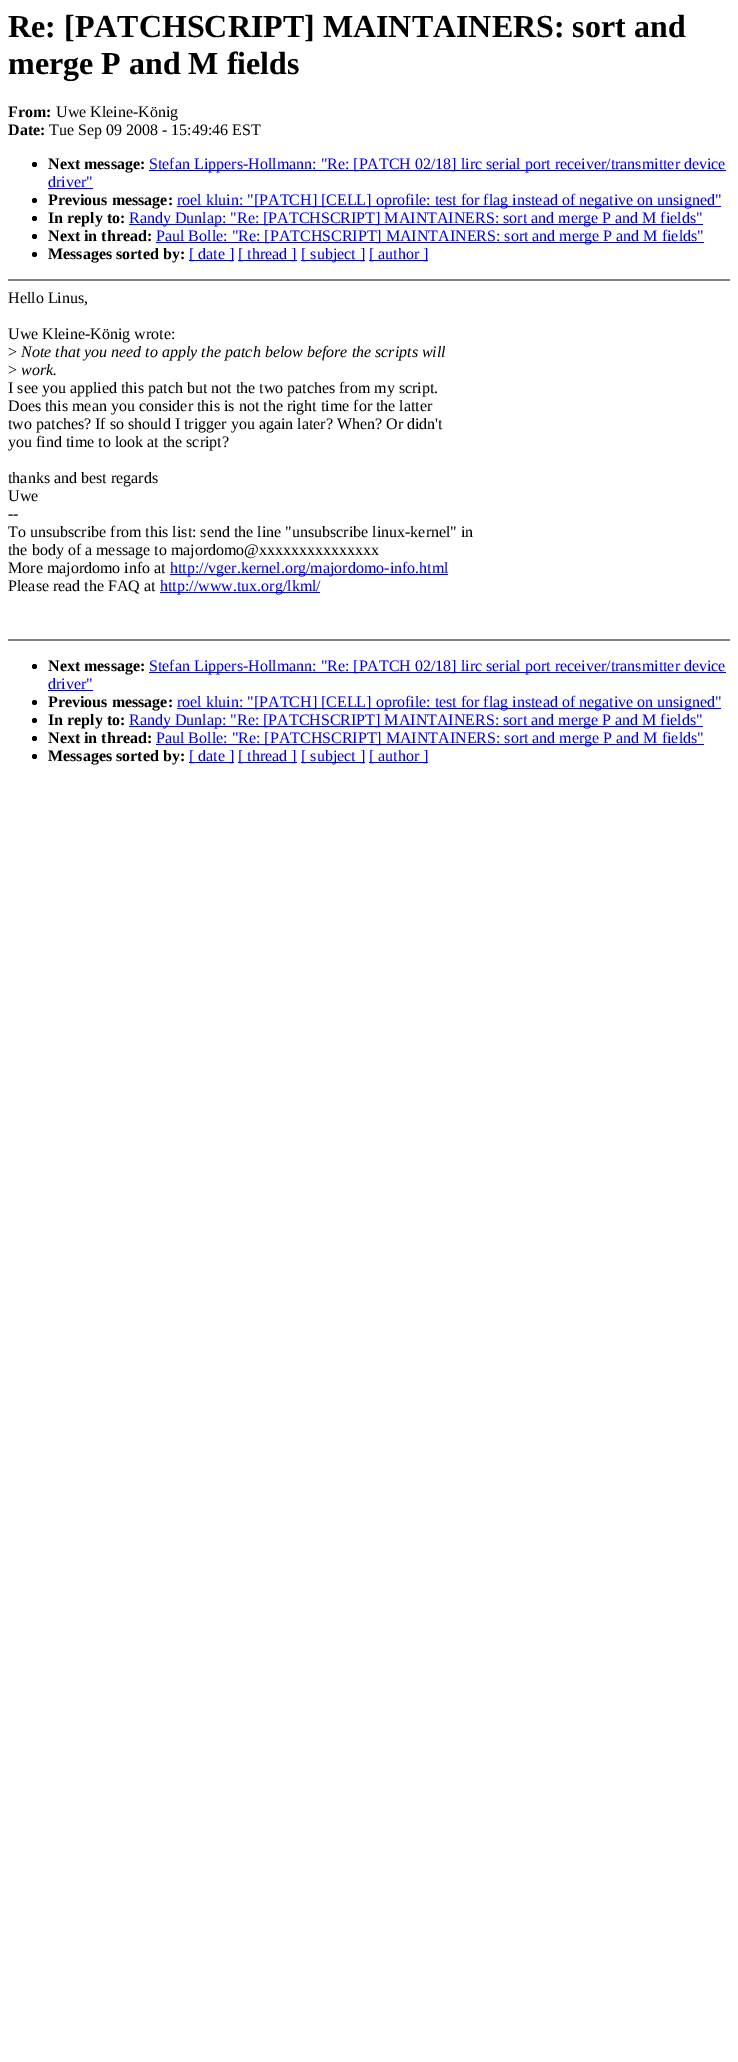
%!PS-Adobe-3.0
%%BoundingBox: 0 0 738 2062
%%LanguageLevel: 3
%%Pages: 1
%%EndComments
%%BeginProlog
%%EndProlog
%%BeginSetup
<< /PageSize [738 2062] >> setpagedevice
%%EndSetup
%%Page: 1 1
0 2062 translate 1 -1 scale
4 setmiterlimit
1 setgray
0 0 738 2062 rectfill
0 setgray
newpath 34.5 164.5 2.5 0 360 arc closepath fill
0 0 0.933 setrgbcolor
149 170 577 1 rectfill
48 188 45 1 rectfill
0 setgray
newpath 34.5 200.5 2.5 0 360 arc closepath fill
0 0 0.933 setrgbcolor
177 206 544 1 rectfill
0 setgray
newpath 34.5 218.5 2.5 0 360 arc closepath fill
0 0 0.933 setrgbcolor
129 224 574 1 rectfill
0 setgray
newpath 34.5 236.5 2.5 0 360 arc closepath fill
0 0 0.933 setrgbcolor
156 242 548 1 rectfill
0 setgray
newpath 34.5 254.5 2.5 0 360 arc closepath fill
0 0 0.933 setrgbcolor
189 260 45 1 rectfill
238 260 59 1 rectfill
301 260 64 1 rectfill
369 260 59 1 rectfill
0.502 setgray
8 279 722 2 rectfill
0 0 0.933 setrgbcolor
170 574 278 1 rectfill
160 592 160 1 rectfill
0.502 setgray
8 639 722 2 rectfill
0 setgray
newpath 34.5 666.5 2.5 0 360 arc closepath fill
0 0 0.933 setrgbcolor
149 672 577 1 rectfill
48 690 45 1 rectfill
0 setgray
newpath 34.5 702.5 2.5 0 360 arc closepath fill
0 0 0.933 setrgbcolor
177 708 544 1 rectfill
0 setgray
newpath 34.5 720.5 2.5 0 360 arc closepath fill
0 0 0.933 setrgbcolor
129 726 574 1 rectfill
0 setgray
newpath 34.5 738.5 2.5 0 360 arc closepath fill
0 0 0.933 setrgbcolor
156 744 548 1 rectfill
0 setgray
newpath 34.5 756.5 2.5 0 360 arc closepath fill
0 0 0.933 setrgbcolor
189 762 45 1 rectfill
238 762 59 1 rectfill
301 762 64 1 rectfill
369 762 59 1 rectfill
/LiberationSerif-Bold [32 0 0 -32 0 0] selectfont
0 setgray
8 37 moveto (Re: [PATCHSCRIPT] MAINTAINERS: sort and) show
8 74 moveto (merge P and M fields) show
/LiberationSerif-Bold [16 0 0 -16 0 0] selectfont
8 117 moveto (From:) show
/LiberationSerif-Regular [16 0 0 -16 0 0] selectfont
56 117 moveto (Uwe Kleine-König) show
/LiberationSerif-Bold [16 0 0 -16 0 0] selectfont
8 135 moveto (Date:) show
/LiberationSerif-Regular [16 0 0 -16 0 0] selectfont
49 135 moveto (Tue Sep 09 2008 - 15:49:46 EST) show
/LiberationSerif-Bold [16 0 0 -16 0 0] selectfont
48 169 moveto (Next message:) show
/LiberationSerif-Regular [16 0 0 -16 0 0] selectfont
0 0 0.933 setrgbcolor
149 169 moveto (Stefan Lippers-Hollmann: "Re: [PATCH 02/18] lirc serial port receiver/transmitter device) show
48 187 moveto (driver") show
/LiberationSerif-Bold [16 0 0 -16 0 0] selectfont
0 setgray
48 205 moveto (Previous message:) show
/LiberationSerif-Regular [16 0 0 -16 0 0] selectfont
0 0 0.933 setrgbcolor
177 205 moveto (roel kluin: "[PATCH] [CELL] oprofile: test for flag instead of negative on unsigned") show
/LiberationSerif-Bold [16 0 0 -16 0 0] selectfont
0 setgray
48 223 moveto (In reply to:) show
/LiberationSerif-Regular [16 0 0 -16 0 0] selectfont
0 0 0.933 setrgbcolor
129 223 moveto (Randy Dunlap: "Re: [PATCHSCRIPT] MAINTAINERS: sort and merge P and M fields") show
/LiberationSerif-Bold [16 0 0 -16 0 0] selectfont
0 setgray
48 241 moveto (Next in thread:) show
/LiberationSerif-Regular [16 0 0 -16 0 0] selectfont
0 0 0.933 setrgbcolor
156 241 moveto (Paul Bolle: "Re: [PATCHSCRIPT] MAINTAINERS: sort and merge P and M fields") show
/LiberationSerif-Bold [16 0 0 -16 0 0] selectfont
0 setgray
48 259 moveto (Messages sorted by:) show
/LiberationSerif-Regular [16 0 0 -16 0 0] selectfont
0 0 0.933 setrgbcolor
189 259 moveto ([ date ]) show
238 259 moveto ([ thread ]) show
301 259 moveto ([ subject ]) show
369 259 moveto ([ author ]) show
0 setgray
8 303 moveto (Hello Linus,) show
8 339 moveto (Uwe Kleine-König wrote:) show
8 357 moveto (>) show
/LiberationSerif-Italic [16 0 0 -16 0 0] selectfont
21 357 moveto (Note that you need to apply the patch below before the scripts will) show
/LiberationSerif-Regular [16 0 0 -16 0 0] selectfont
8 375 moveto (>) show
/LiberationSerif-Italic [16 0 0 -16 0 0] selectfont
21 375 moveto (work.) show
/LiberationSerif-Regular [16 0 0 -16 0 0] selectfont
8 393 moveto (I see you applied this patch but not the two patches from my script.) show
8 411 moveto (Does this mean you consider this is not the right time for the latter) show
8 429 moveto (two patches? If so should I trigger you again later? When? Or didn't) show
8 447 moveto (you find time to look at the script?) show
8 483 moveto (thanks and best regards) show
8 501 moveto (Uwe) show
8 519 moveto (--) show
8 537 moveto (To unsubscribe from this list: send the line "unsubscribe linux-kernel" in) show
8 555 moveto (the body of a message to majordomo@xxxxxxxxxxxxxxx) show
8 573 moveto (More majordomo info at) show
0 0 0.933 setrgbcolor
170 573 moveto (http://vger.kernel.org/majordomo-info.html) show
0 setgray
8 591 moveto (Please read the FAQ at) show
0 0 0.933 setrgbcolor
160 591 moveto (http://www.tux.org/lkml/) show
/LiberationSerif-Bold [16 0 0 -16 0 0] selectfont
0 setgray
48 671 moveto (Next message:) show
/LiberationSerif-Regular [16 0 0 -16 0 0] selectfont
0 0 0.933 setrgbcolor
149 671 moveto (Stefan Lippers-Hollmann: "Re: [PATCH 02/18] lirc serial port receiver/transmitter device) show
48 689 moveto (driver") show
/LiberationSerif-Bold [16 0 0 -16 0 0] selectfont
0 setgray
48 707 moveto (Previous message:) show
/LiberationSerif-Regular [16 0 0 -16 0 0] selectfont
0 0 0.933 setrgbcolor
177 707 moveto (roel kluin: "[PATCH] [CELL] oprofile: test for flag instead of negative on unsigned") show
/LiberationSerif-Bold [16 0 0 -16 0 0] selectfont
0 setgray
48 725 moveto (In reply to:) show
/LiberationSerif-Regular [16 0 0 -16 0 0] selectfont
0 0 0.933 setrgbcolor
129 725 moveto (Randy Dunlap: "Re: [PATCHSCRIPT] MAINTAINERS: sort and merge P and M fields") show
/LiberationSerif-Bold [16 0 0 -16 0 0] selectfont
0 setgray
48 743 moveto (Next in thread:) show
/LiberationSerif-Regular [16 0 0 -16 0 0] selectfont
0 0 0.933 setrgbcolor
156 743 moveto (Paul Bolle: "Re: [PATCHSCRIPT] MAINTAINERS: sort and merge P and M fields") show
/LiberationSerif-Bold [16 0 0 -16 0 0] selectfont
0 setgray
48 761 moveto (Messages sorted by:) show
/LiberationSerif-Regular [16 0 0 -16 0 0] selectfont
0 0 0.933 setrgbcolor
189 761 moveto ([ date ]) show
238 761 moveto ([ thread ]) show
301 761 moveto ([ subject ]) show
369 761 moveto ([ author ]) show
showpage
%%EOF
